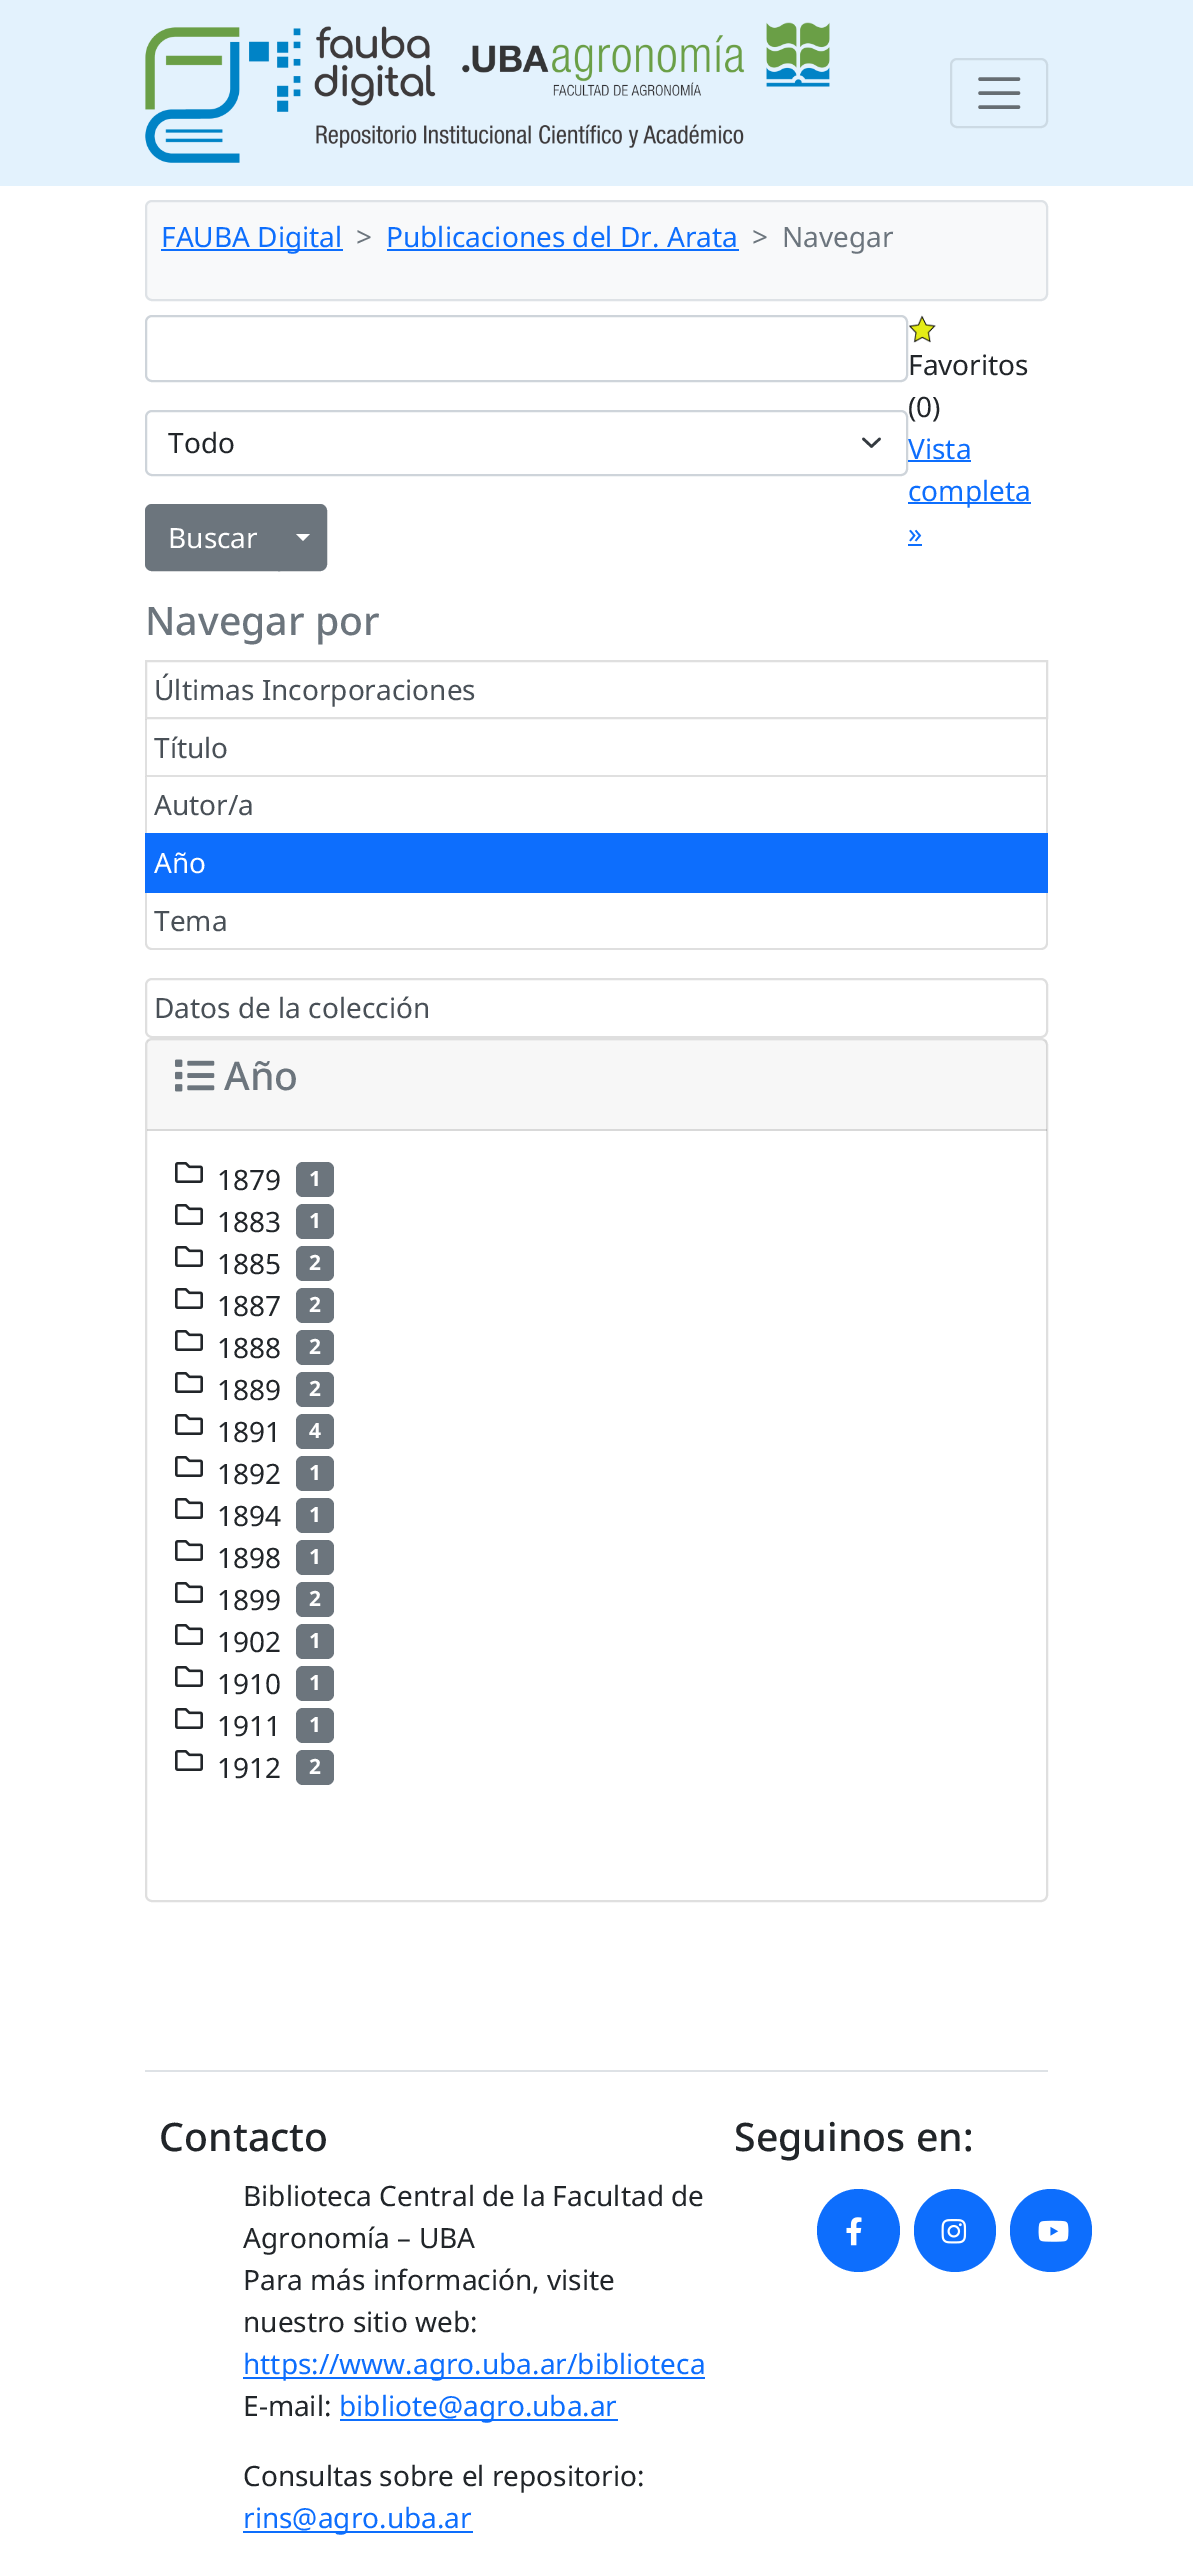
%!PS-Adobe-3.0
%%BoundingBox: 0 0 1193 2556
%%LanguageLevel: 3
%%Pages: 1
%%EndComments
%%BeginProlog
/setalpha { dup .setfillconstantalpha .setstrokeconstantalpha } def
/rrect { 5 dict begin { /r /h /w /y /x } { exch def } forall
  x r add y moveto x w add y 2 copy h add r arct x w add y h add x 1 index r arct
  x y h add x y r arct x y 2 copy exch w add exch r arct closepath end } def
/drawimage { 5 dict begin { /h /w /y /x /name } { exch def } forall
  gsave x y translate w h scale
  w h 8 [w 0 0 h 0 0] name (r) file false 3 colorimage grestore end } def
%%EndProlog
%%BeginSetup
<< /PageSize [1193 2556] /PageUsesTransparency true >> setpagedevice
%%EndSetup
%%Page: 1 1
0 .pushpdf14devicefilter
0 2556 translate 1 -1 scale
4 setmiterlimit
1 setgray
0 0 1193 2556 rectfill
0.89 0.949 0.992 setrgbcolor
0 0 1193 186 rectfill
(images/1.raw) 145 22 685 141 drawimage
0.8 0.855 0.894 setrgbcolor
2 setlinewidth
951 59 96 68 6 rrect stroke
0.4 0.427 0.447 setrgbcolor
3.5 setlinewidth
1 setlinecap
newpath 980 79 moveto 1018.5 79 lineto 980 93 moveto 1018.5 93 lineto 980 107 moveto 1018.5 107 lineto stroke
0.973 0.976 0.98 setrgbcolor
146 201 901 99 6 rrect gsave fill grestore
0.871 0.886 0.902 setrgbcolor
2 setlinewidth
0 setlinecap
stroke
0.051 0.431 0.992 setrgbcolor
161 249 182 2 rectfill
387 249 352 2 rectfill
0.808 0.831 0.855 setrgbcolor
146 316 761 65 6 rrect stroke
0.204 0.227 0.251 setrgbcolor
2.6 setlinewidth
1 setlinecap
1 setlinejoin
newpath 863.5 439 moveto 871.5 446.5 lineto 879.5 439 lineto stroke
0.808 0.831 0.855 setrgbcolor
2 setlinewidth
0 setlinecap
0 setlinejoin
146 411 761 64 6 rrect stroke
0.424 0.459 0.49 setrgbcolor
newpath 152 505 moveto 279 505 lineto 279 570 lineto 152 570 lineto 148.5 570 146 567.5 146 564 curveto 146 511 lineto 146 507.5 148.5 505 152 505 curveto closepath gsave fill grestore
stroke
newpath 279 505 moveto 320 505 lineto 323.5 505 326 507.5 326 511 curveto 326 564 lineto 326 567.5 323.5 570 320 570 curveto 279 570 lineto closepath gsave fill grestore
stroke
1 setgray
newpath 296 534 moveto 310 534 lineto 303 541 lineto closepath fill
(images/2.raw) 909 315 27 28 drawimage
0.051 0.431 0.992 setrgbcolor
908 460 63 2 rectfill
908 502 123 2 rectfill
908 544 14 2 rectfill
0.875 setgray
146 661 901 57 rectstroke
newpath 1048 719 moveto 1048 777 lineto 1046 775 lineto 1046 719 lineto closepath fill
0.12 setalpha
0 setgray
newpath 1048 777 moveto 145 777 lineto 147 775 lineto 1046 775 lineto closepath fill
newpath 145 777 moveto 145 719 lineto 147 719 lineto 147 775 lineto closepath fill
1 setalpha
0.875 setgray
newpath 1048 777 moveto 1048 835 lineto 1046 833 lineto 1046 777 lineto closepath fill
0.12 setalpha
0 setgray
newpath 145 835 moveto 145 777 lineto 147 777 lineto 147 833 lineto closepath fill
1 setalpha
0.875 setgray
newpath 145 892 moveto 1048 892 lineto 1048 943 lineto 1048 947 1045 950 1041 950 curveto 152 950 lineto 148 950 145 947 145 943 curveto closepath 147 892 moveto 1046 892 lineto 1046 943 lineto 1046 946 1044 948 1041 948 curveto 152 948 lineto 149 948 147 946 147 943 curveto closepath eofill
0.051 0.431 0.992 setrgbcolor
145 833 903 60 rectfill
0.875 setgray
146 979 901 58 6 rrect stroke
146 1039 901 862 6 rrect stroke
0.03 setalpha
0 setgray
147 1040 900 91 rectfill
0.12 setalpha
147 1129 900 2 rectfill
1 setalpha
(images/3.raw) 175 1059 40 33 drawimage
(images/4.raw) 175 1162 28 21 drawimage
0.424 0.459 0.49 setrgbcolor
296 1162 38 35 7 rrect fill
(images/4.raw) 175 1204 28 21 drawimage
296 1204 38 35 7 rrect fill
(images/4.raw) 175 1246 28 21 drawimage
296 1246 38 35 7 rrect fill
(images/4.raw) 175 1288 28 21 drawimage
296 1288 38 35 7 rrect fill
(images/4.raw) 175 1330 28 21 drawimage
296 1330 38 35 7 rrect fill
(images/4.raw) 175 1372 28 21 drawimage
296 1372 38 35 7 rrect fill
(images/4.raw) 175 1414 28 21 drawimage
296 1414 38 35 7 rrect fill
(images/4.raw) 175 1456 28 21 drawimage
296 1456 38 35 7 rrect fill
(images/4.raw) 175 1498 28 21 drawimage
296 1498 38 35 7 rrect fill
(images/4.raw) 175 1540 28 21 drawimage
296 1540 38 35 7 rrect fill
(images/4.raw) 175 1582 28 21 drawimage
296 1582 38 35 7 rrect fill
(images/4.raw) 175 1624 28 21 drawimage
296 1624 38 35 7 rrect fill
(images/4.raw) 175 1666 28 21 drawimage
296 1666 38 35 7 rrect fill
(images/4.raw) 175 1708 28 21 drawimage
296 1708 38 35 7 rrect fill
(images/4.raw) 175 1750 28 21 drawimage
296 1750 38 35 7 rrect fill
0.871 0.886 0.902 setrgbcolor
145 2070 903 2 rectfill
0.051 0.431 0.992 setrgbcolor
243 2377 462 2 rectfill
340 2419 278 2 rectfill
243 2531 230 2 rectfill
newpath 858.5 2230.5 41.5 0 360 arc closepath fill
(images/5.raw) 846 2217 16 29 drawimage
914 2189 82 83 41 rrect fill
(images/6.raw) 941 2219 26 25 drawimage
1010 2189 82 83 41 rrect fill
(images/7.raw) 1038 2220 31 22 drawimage
/NotoSans-Regular [28 0 0 -28 0 0] selectfont
161 247 moveto (FAUBA Digital) show
0.424 0.459 0.49 setrgbcolor
356 247 moveto (>) show
0.051 0.431 0.992 setrgbcolor
386 247 moveto (Publicaciones del Dr. Arata) show
0.424 0.459 0.49 setrgbcolor
752 247 moveto (>) show
782 247 moveto (Navegar) show
0.129 0.145 0.161 setrgbcolor
168 453 moveto (Todo) show
1 setgray
168 548 moveto (Buscar) show
0.129 0.145 0.161 setrgbcolor
908 375 moveto (Favoritos) show
908 417 moveto (\(0\)) show
0.051 0.431 0.992 setrgbcolor
908 459 moveto (Vista) show
908 501 moveto (completa) show
908 543 moveto (») show
/NotoSans-Medium [39.25 0 0 -39.25 0 0] selectfont
0.424 0.459 0.49 setrgbcolor
145 635 moveto (Navegar por) show
/NotoSans-Regular [28 0 0 -28 0 0] selectfont
0.286 0.314 0.341 setrgbcolor
154 700 moveto (Últimas Incorporaciones) show
154 758 moveto (Título) show
154 815 moveto (Autor/a) show
1 setgray
154 873 moveto (Año) show
0.286 0.314 0.341 setrgbcolor
154 931 moveto (Tema) show
154 1018 moveto (Datos de la colección) show
/NotoSans-Medium [39.25 0 0 -39.25 0 0] selectfont
0.424 0.459 0.49 setrgbcolor
224 1090 moveto (Año) show
/NotoSans-Regular [28 0 0 -28 0 0] selectfont
0.129 0.145 0.161 setrgbcolor
217 1190 moveto (1879) show
/NotoSans-Bold [21 0 0 -21 0 0] selectfont
1 setgray
309 1186 moveto (1) show
/NotoSans-Regular [28 0 0 -28 0 0] selectfont
0.129 0.145 0.161 setrgbcolor
217 1232 moveto (1883) show
/NotoSans-Bold [21 0 0 -21 0 0] selectfont
1 setgray
309 1228 moveto (1) show
/NotoSans-Regular [28 0 0 -28 0 0] selectfont
0.129 0.145 0.161 setrgbcolor
217 1274 moveto (1885) show
/NotoSans-Bold [21 0 0 -21 0 0] selectfont
1 setgray
309 1270 moveto (2) show
/NotoSans-Regular [28 0 0 -28 0 0] selectfont
0.129 0.145 0.161 setrgbcolor
217 1316 moveto (1887) show
/NotoSans-Bold [21 0 0 -21 0 0] selectfont
1 setgray
309 1312 moveto (2) show
/NotoSans-Regular [28 0 0 -28 0 0] selectfont
0.129 0.145 0.161 setrgbcolor
217 1358 moveto (1888) show
/NotoSans-Bold [21 0 0 -21 0 0] selectfont
1 setgray
309 1354 moveto (2) show
/NotoSans-Regular [28 0 0 -28 0 0] selectfont
0.129 0.145 0.161 setrgbcolor
217 1400 moveto (1889) show
/NotoSans-Bold [21 0 0 -21 0 0] selectfont
1 setgray
309 1396 moveto (2) show
/NotoSans-Regular [28 0 0 -28 0 0] selectfont
0.129 0.145 0.161 setrgbcolor
217 1442 moveto (1891) show
/NotoSans-Bold [21 0 0 -21 0 0] selectfont
1 setgray
309 1438 moveto (4) show
/NotoSans-Regular [28 0 0 -28 0 0] selectfont
0.129 0.145 0.161 setrgbcolor
217 1484 moveto (1892) show
/NotoSans-Bold [21 0 0 -21 0 0] selectfont
1 setgray
309 1480 moveto (1) show
/NotoSans-Regular [28 0 0 -28 0 0] selectfont
0.129 0.145 0.161 setrgbcolor
217 1526 moveto (1894) show
/NotoSans-Bold [21 0 0 -21 0 0] selectfont
1 setgray
309 1522 moveto (1) show
/NotoSans-Regular [28 0 0 -28 0 0] selectfont
0.129 0.145 0.161 setrgbcolor
217 1568 moveto (1898) show
/NotoSans-Bold [21 0 0 -21 0 0] selectfont
1 setgray
309 1564 moveto (1) show
/NotoSans-Regular [28 0 0 -28 0 0] selectfont
0.129 0.145 0.161 setrgbcolor
217 1610 moveto (1899) show
/NotoSans-Bold [21 0 0 -21 0 0] selectfont
1 setgray
309 1606 moveto (2) show
/NotoSans-Regular [28 0 0 -28 0 0] selectfont
0.129 0.145 0.161 setrgbcolor
217 1652 moveto (1902) show
/NotoSans-Bold [21 0 0 -21 0 0] selectfont
1 setgray
309 1648 moveto (1) show
/NotoSans-Regular [28 0 0 -28 0 0] selectfont
0.129 0.145 0.161 setrgbcolor
217 1694 moveto (1910) show
/NotoSans-Bold [21 0 0 -21 0 0] selectfont
1 setgray
309 1690 moveto (1) show
/NotoSans-Regular [28 0 0 -28 0 0] selectfont
0.129 0.145 0.161 setrgbcolor
217 1736 moveto (1911) show
/NotoSans-Bold [21 0 0 -21 0 0] selectfont
1 setgray
309 1732 moveto (1) show
/NotoSans-Regular [28 0 0 -28 0 0] selectfont
0.129 0.145 0.161 setrgbcolor
217 1778 moveto (1912) show
/NotoSans-Bold [21 0 0 -21 0 0] selectfont
1 setgray
309 1774 moveto (2) show
/NotoSans-Medium [39.25 0 0 -39.25 0 0] selectfont
0.129 0.145 0.161 setrgbcolor
159 2151 moveto (Contacto) show
/NotoSans-Regular [28 0 0 -28 0 0] selectfont
243 2206 moveto (Biblioteca Central de la Facultad de) show
243 2248 moveto (Agronomía – UBA) show
243 2290 moveto (Para más información, visite) show
243 2332 moveto (nuestro sitio web:) show
0.051 0.431 0.992 setrgbcolor
243 2374 moveto (https://www.agro.uba.ar/biblioteca) show
0.129 0.145 0.161 setrgbcolor
243 2416 moveto (E-mail:) show
0.051 0.431 0.992 setrgbcolor
339 2416 moveto (bibliote@agro.uba.ar) show
0.129 0.145 0.161 setrgbcolor
243 2486 moveto (Consultas sobre el repositorio:) show
0.051 0.431 0.992 setrgbcolor
243 2528 moveto (rins@agro.uba.ar) show
/NotoSans-Medium [39.25 0 0 -39.25 0 0] selectfont
0.129 0.145 0.161 setrgbcolor
734 2151 moveto (Seguinos en:) show
.poppdf14devicefilter showpage
%%EOF
